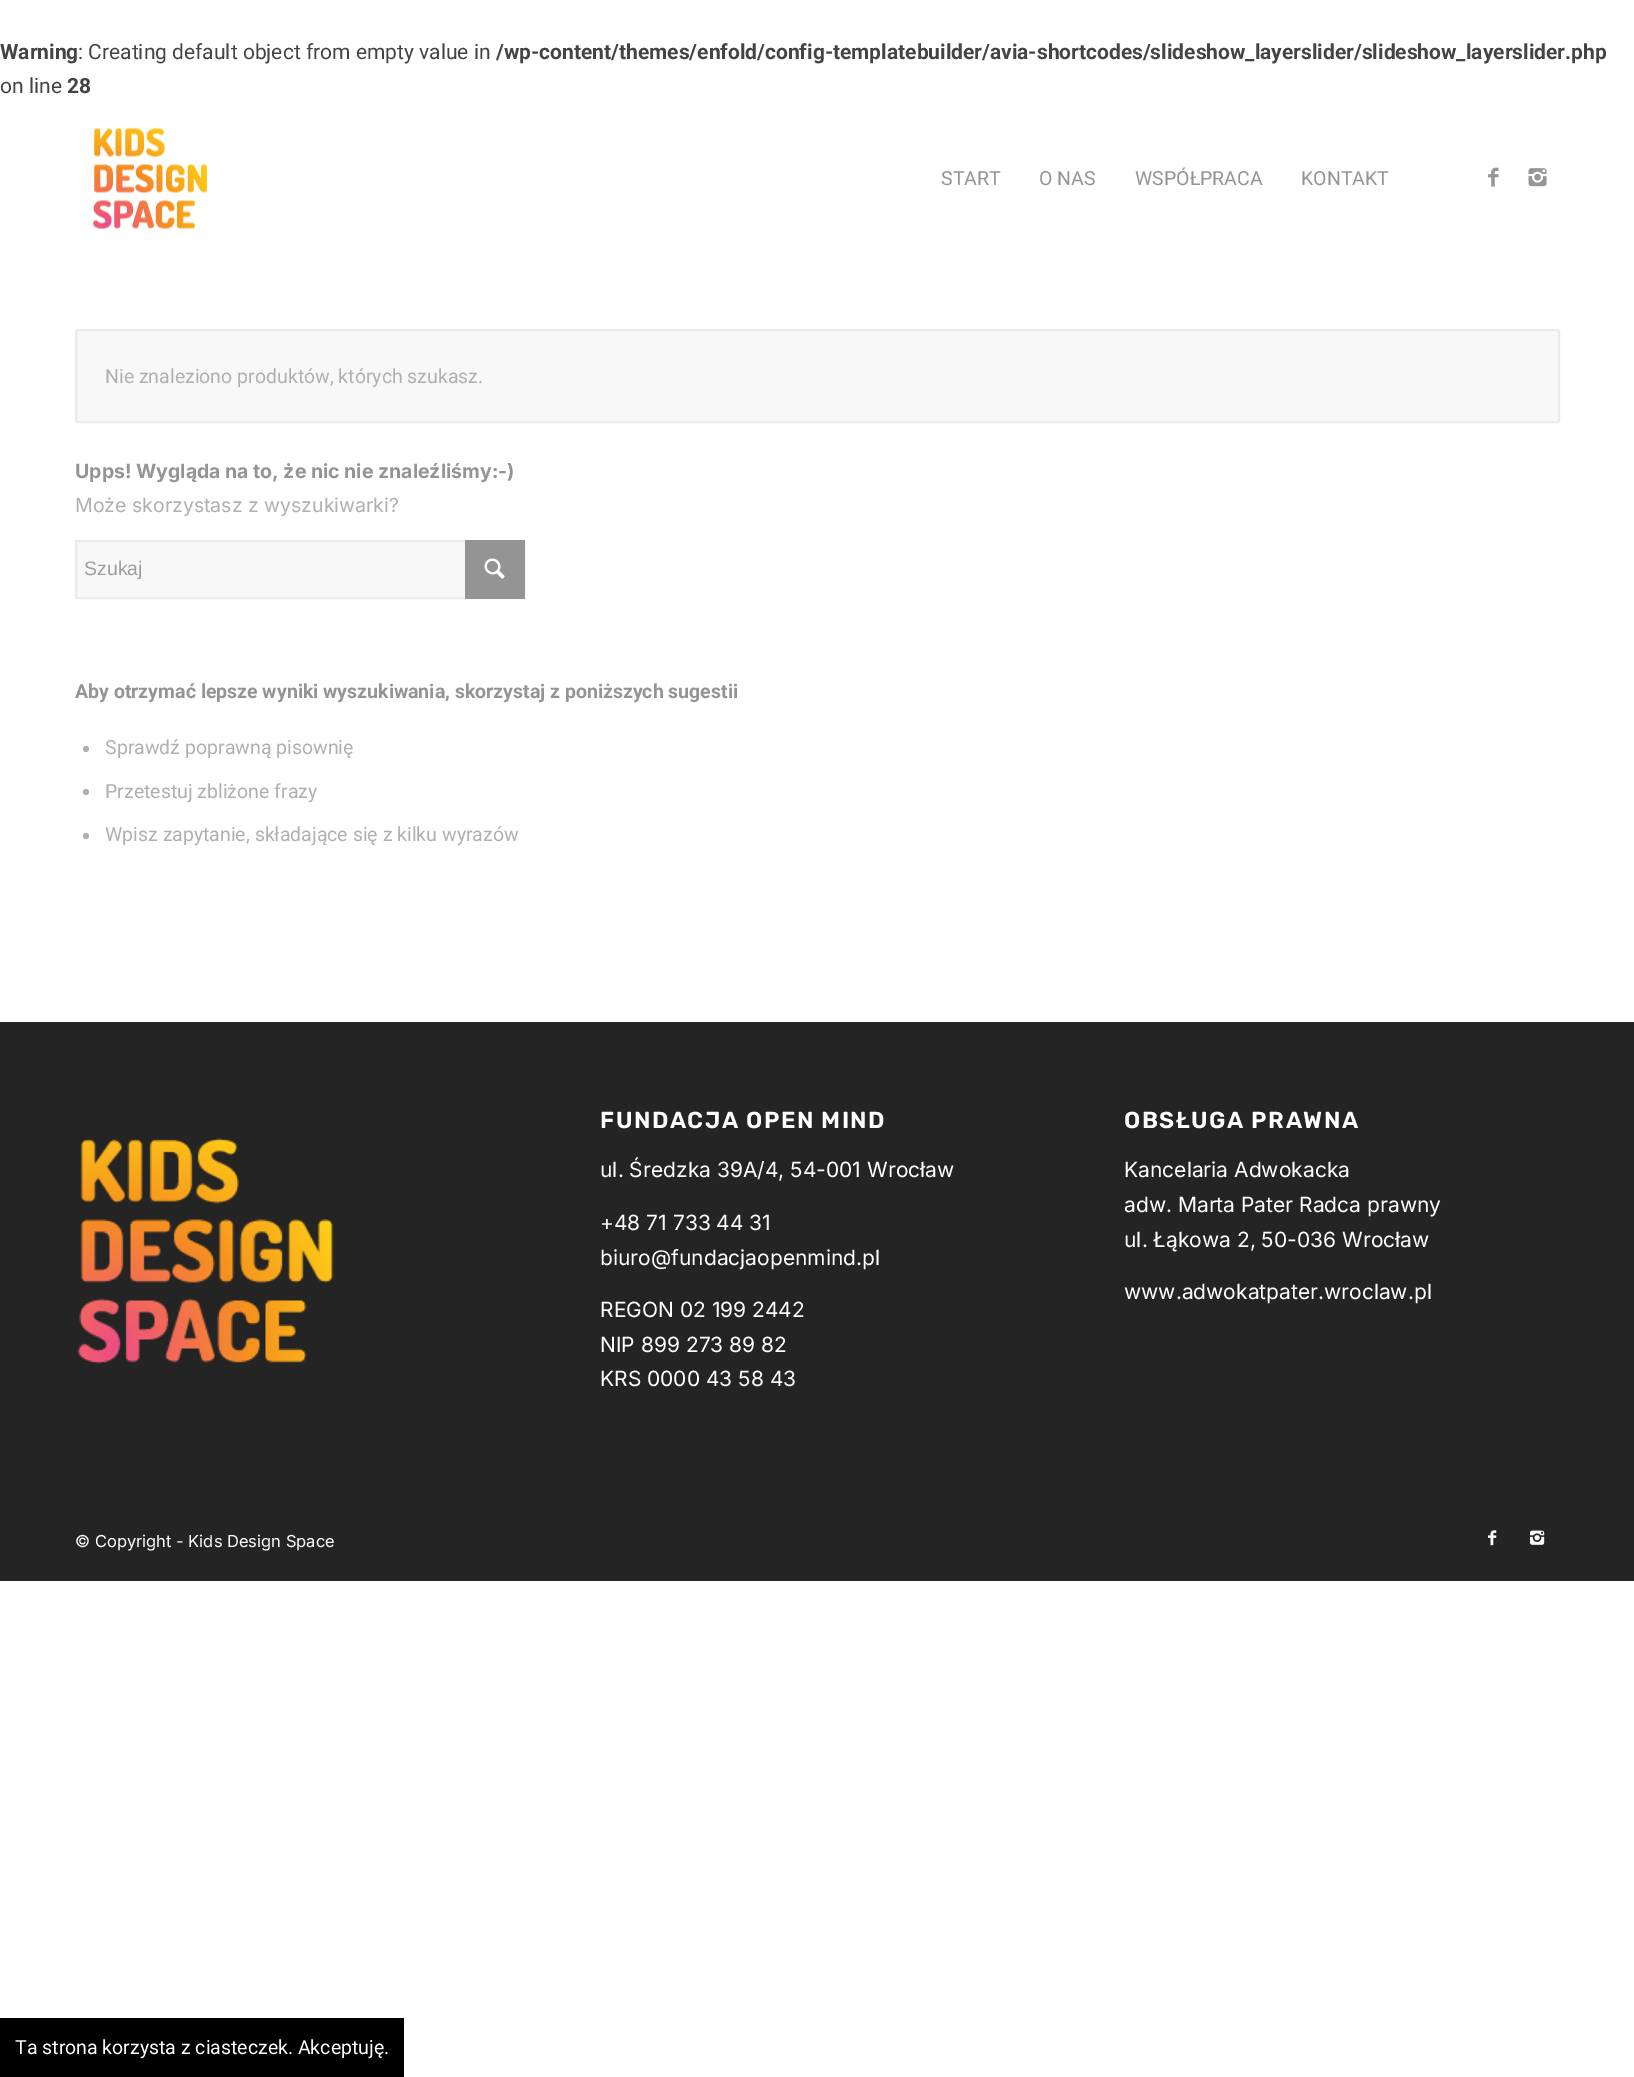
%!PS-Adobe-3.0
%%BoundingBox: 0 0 1634 2077
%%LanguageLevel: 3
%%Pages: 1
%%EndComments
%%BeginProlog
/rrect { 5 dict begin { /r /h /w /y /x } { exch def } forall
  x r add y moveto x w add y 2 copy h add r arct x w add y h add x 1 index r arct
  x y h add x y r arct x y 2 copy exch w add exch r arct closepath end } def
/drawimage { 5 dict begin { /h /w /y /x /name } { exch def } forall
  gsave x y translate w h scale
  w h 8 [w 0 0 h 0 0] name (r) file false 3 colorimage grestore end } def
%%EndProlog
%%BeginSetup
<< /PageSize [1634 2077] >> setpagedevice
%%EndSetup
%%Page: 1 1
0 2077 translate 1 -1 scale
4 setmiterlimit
1 setgray
0 0 1634 2077 rectfill
(images/1.raw) 93 128 114 101 drawimage
(images/2.raw) 1488 167 11 20 drawimage
(images/3.raw) 1528 168 19 19 drawimage
0.973 setgray
76 330 1483 92 2 rrect gsave fill grestore
0.922 setgray
2 setlinewidth
stroke
0.973 setgray
77 542 388 55 rectfill
0.922 setgray
76 541 448 57 rectstroke
0.58 setgray
465 540 60 59 rectfill
(images/4.raw) 484 558 21 21 drawimage
0.69 setgray
newpath 86 749 3 0 360 arc closepath fill
newpath 86 792 3 0 360 arc closepath fill
newpath 86 836 3 0 360 arc closepath fill
0.141 setgray
0 1022 1634 559 rectfill
(images/5.raw) 77 1138 257 226 drawimage
(images/6.raw) 1488 1530 9 16 drawimage
(images/7.raw) 1530 1530 15 15 drawimage
0 setgray
0 2018 404 59 rectfill
/Roboto-Bold [21 0 0 -21 0 0] selectfont
0.267 setgray
0 59 moveto (Warning) show
/Roboto-Regular [21 0 0 -21 0 0] selectfont
78 59 moveto (: Creating default object from empty value in) show
/Roboto-Bold [21 0 0 -21 0 0] selectfont
496 59 moveto (/wp-content/themes/enfold/config-templatebuilder/avia-shortcodes/slideshow_layerslider/slideshow_layerslider.php) show
/Roboto-Regular [21 0 0 -21 0 0] selectfont
0 93 moveto (on line) show
/Roboto-Bold [21 0 0 -21 0 0] selectfont
67 93 moveto (28) show
/Roboto-Regular [19.5 0 0 -19.5 0 0] selectfont
0.58 setgray
941 185 moveto (START) show
1039 185 moveto (O NAS) show
1135 185 moveto (WSPÓŁPRACA) show
1301 185 moveto (KONTAKT) show
0.69 setgray
105 383 moveto (Nie znaleziono produktów, których szukasz.) show
/Inter-Bold [19.5 0 0 -19.5 0 0] selectfont
0.58 setgray
75 478 moveto (Upps! Wygląda na to, że nic nie znaleźliśmy:-\)) show
/Inter-Regular [19.5 0 0 -19.5 0 0] selectfont
0.69 setgray
75 512 moveto (Może skorzystasz z wyszukiwarki?) show
/LiberationSans-Regular [19.5 0 0 -19.5 0 0] selectfont
0.62 setgray
84 575 moveto (Szukaj) show
/Roboto-Bold [19.5 0 0 -19.5 0 0] selectfont
0.58 setgray
75 698 moveto (Aby otrzymać lepsze wyniki wyszukiwania, skorzystaj z poniższych sugestii) show
/Roboto-Regular [19.5 0 0 -19.5 0 0] selectfont
0.69 setgray
105 754 moveto (Sprawdź poprawną pisownię) show
105 798 moveto (Przetestuj zbliżone frazy) show
105 841 moveto (Wpisz zapytanie, składające się z kilku wyrazów) show
/Rubik-SemiBold [23.1 0 0 -23.1 0 0] selectfont
1 setgray
600 1128 moveto 1.5 0 (FUNDACJA OPEN MIND) ashow
/Inter-Regular [21 0 0 -21 0 0] selectfont
600 1177 moveto (ul. Średzka 39A/4, 54-001 Wrocław) show
600 1230 moveto (+48 71 733 44 31) show
600 1265 moveto (biuro@fundacjaopenmind.pl) show
600 1317 moveto (REGON 02 199 2442) show
600 1352 moveto (NIP 899 273 89 82) show
600 1386 moveto (KRS 0000 43 58 43) show
/Rubik-SemiBold [23.1 0 0 -23.1 0 0] selectfont
1124 1128 moveto 1.5 0 (OBSŁUGA PRAWNA) ashow
/Inter-Regular [21 0 0 -21 0 0] selectfont
1124 1177 moveto (Kancelaria Adwokacka) show
1124 1212 moveto (adw. Marta Pater Radca prawny) show
1124 1247 moveto (ul. Łąkowa 2, 50-036 Wrocław) show
1124 1299 moveto (www.adwokatpater.wroclaw.pl) show
/Inter-Regular [16.5 0 0 -16.5 0 0] selectfont
75 1547 moveto (© Copyright - Kids Design Space) show
/Roboto-Regular [19.5 0 0 -19.5 0 0] selectfont
15 2054 moveto (Ta strona korzysta z ciasteczek. Akceptuję.) show
showpage
%%EOF
